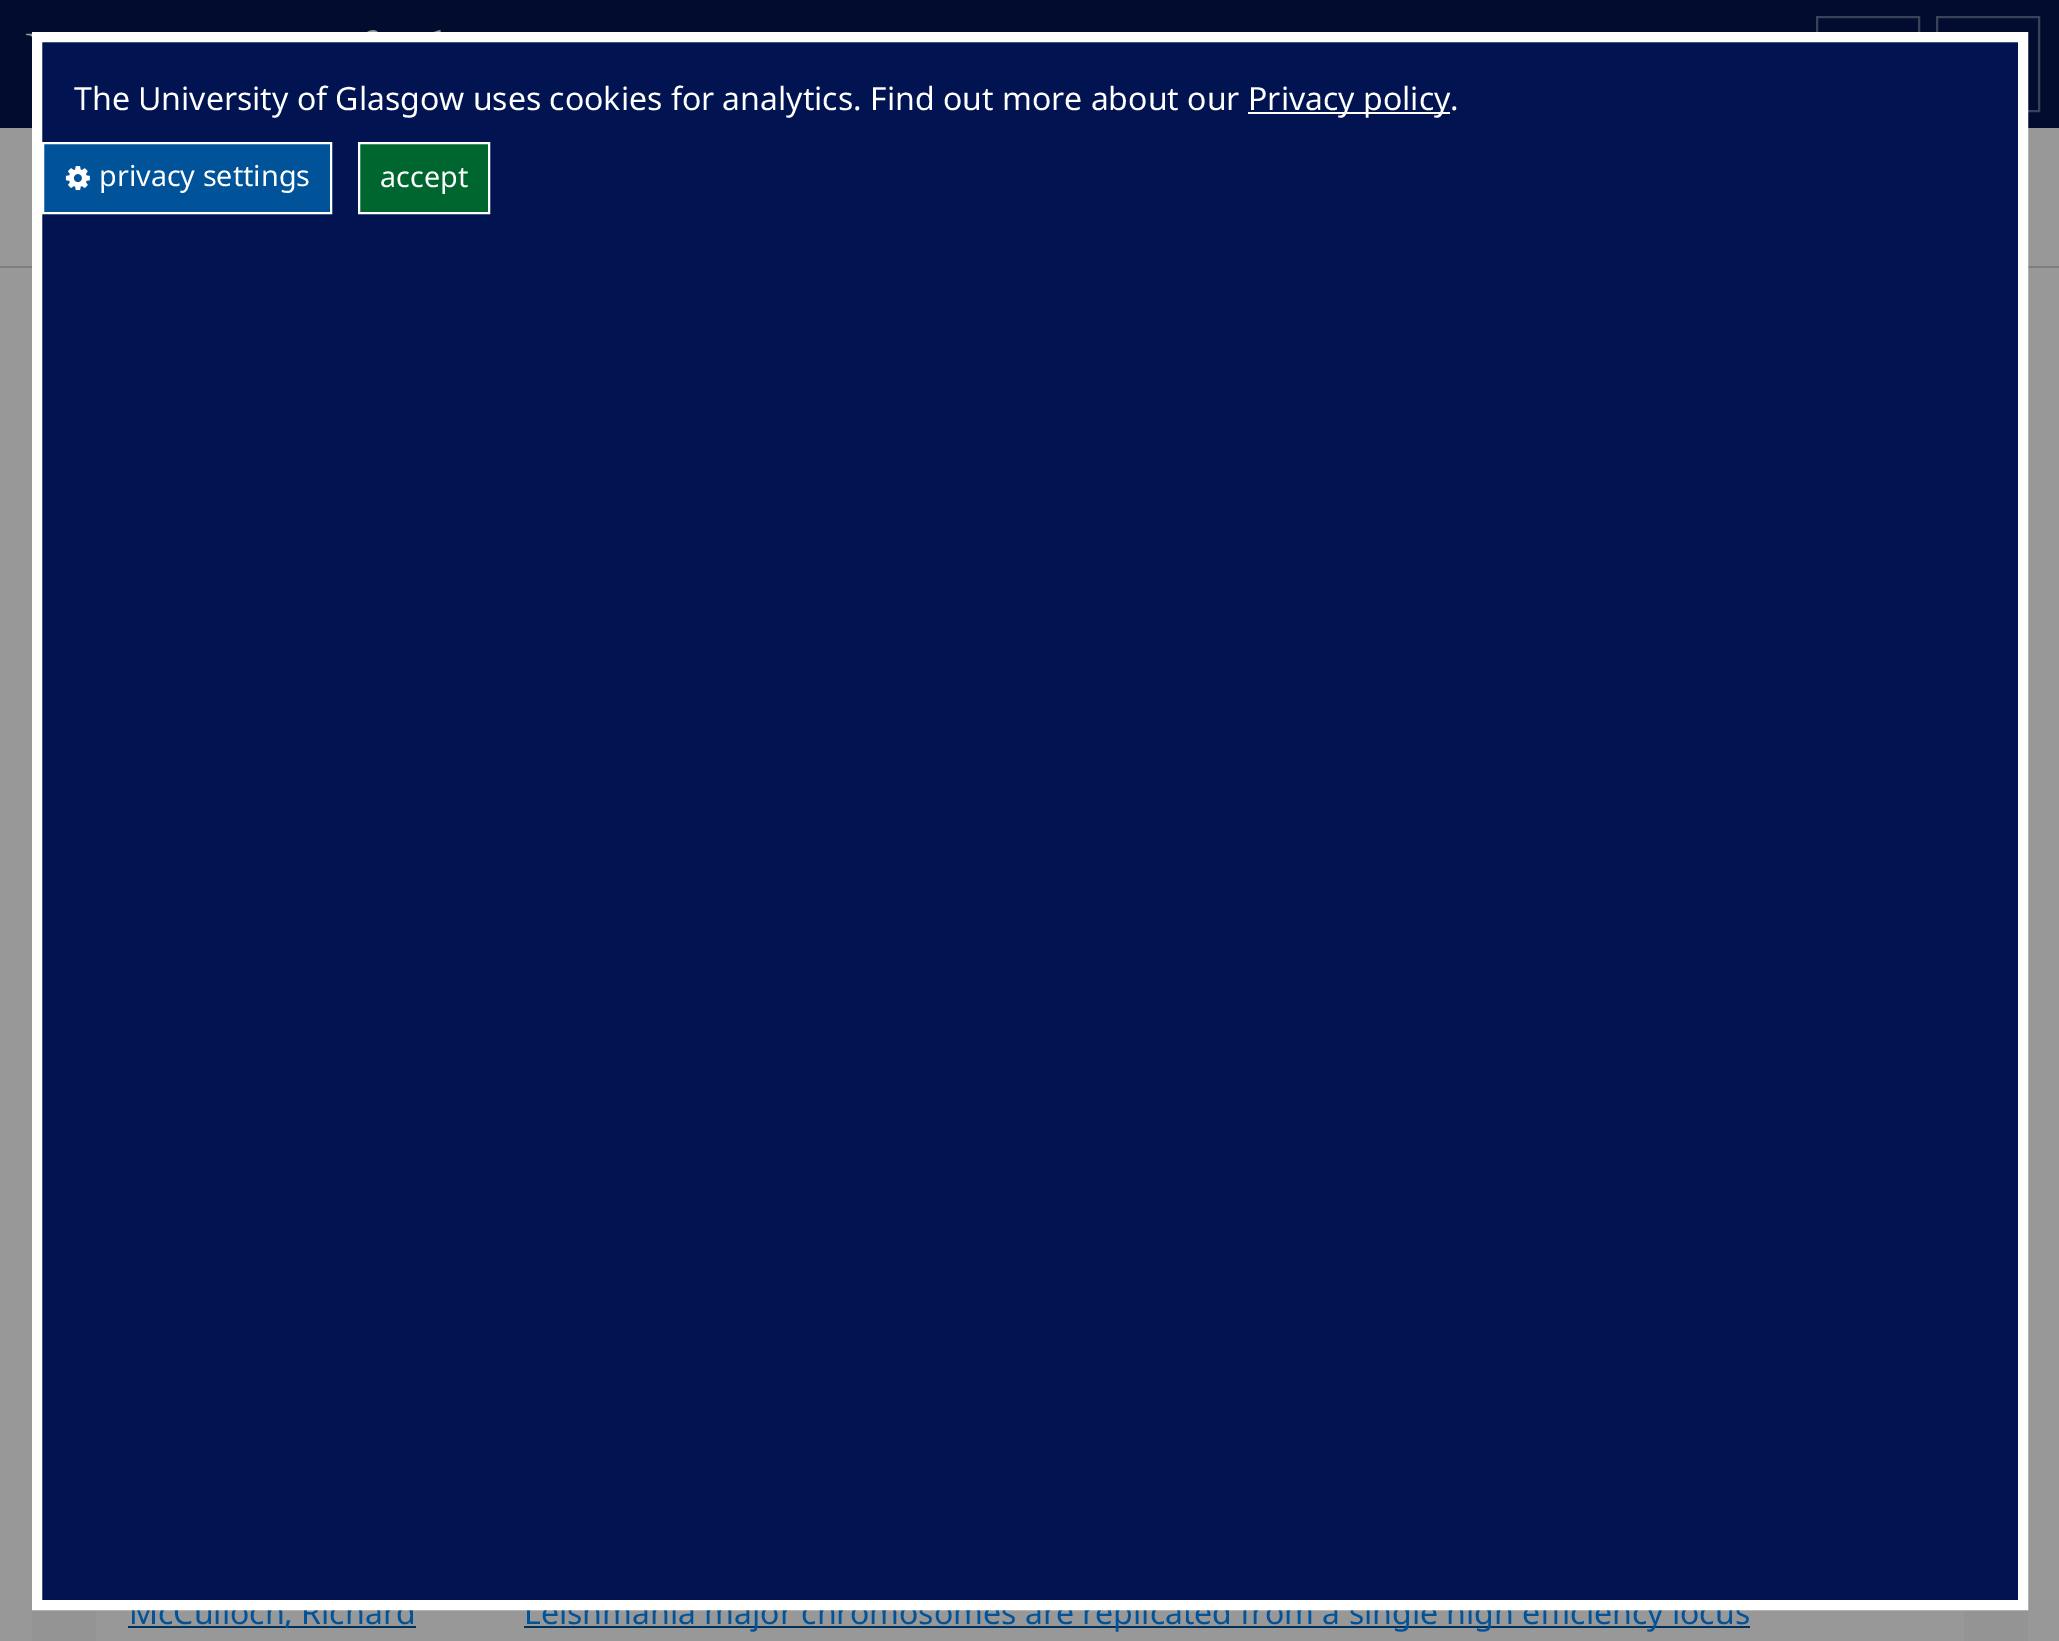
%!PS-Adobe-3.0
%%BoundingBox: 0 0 2059 1641
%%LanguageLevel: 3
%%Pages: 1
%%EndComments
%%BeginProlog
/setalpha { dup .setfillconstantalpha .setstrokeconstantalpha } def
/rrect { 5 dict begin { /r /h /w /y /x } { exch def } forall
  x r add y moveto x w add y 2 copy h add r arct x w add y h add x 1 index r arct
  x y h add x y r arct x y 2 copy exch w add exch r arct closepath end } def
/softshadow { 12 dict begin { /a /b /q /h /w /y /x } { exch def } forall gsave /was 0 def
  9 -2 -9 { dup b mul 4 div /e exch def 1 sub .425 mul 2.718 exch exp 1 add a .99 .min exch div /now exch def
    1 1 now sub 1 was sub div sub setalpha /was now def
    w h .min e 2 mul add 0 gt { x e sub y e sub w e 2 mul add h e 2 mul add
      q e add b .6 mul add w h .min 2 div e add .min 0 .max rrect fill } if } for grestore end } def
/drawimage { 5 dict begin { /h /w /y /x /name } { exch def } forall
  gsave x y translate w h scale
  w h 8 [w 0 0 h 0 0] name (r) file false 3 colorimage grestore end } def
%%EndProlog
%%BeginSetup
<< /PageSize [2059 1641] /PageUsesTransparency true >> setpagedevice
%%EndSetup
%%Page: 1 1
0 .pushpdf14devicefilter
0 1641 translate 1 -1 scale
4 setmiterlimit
1 setgray
0 0 2059 1641 rectfill
0.004 0.078 0.318 setrgbcolor
0 0 2059 128 rectfill
(images/2.raw) 26 30 415 7 drawimage
0.384 0.427 0.576 setrgbcolor
2 setlinewidth
1817 17 102 94 rectstroke
1937 17 102 94 rectstroke
0.827 setgray
0 266 2059 2 rectfill
0.961 setgray
32 1610 1996 31 rectfill
1 setgray
96 1610 1868 31 rectfill
0 0.325 0.596 setrgbcolor
128 1626 288 2 rectfill
524 1626 1226 2 rectfill
0 setgray
-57 -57 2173 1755 0 19 0.41 softshadow
/NotoSans-Regular [32 0 0 -32 0 0] selectfont
0 0.325 0.596 setrgbcolor
129 1624 moveto (McCulloch, Richard) show
524 1624 moveto (Leishmania major chromosomes are replicated from a single high efficiency locus) show
0.004 0.078 0.318 setrgbcolor
newpath 37 37 moveto 2023 37 lineto 2023 1605 lineto 37 1605 lineto closepath gsave fill grestore
1 setgray
10 setlinewidth
stroke
0 0.4 0.188 setrgbcolor
newpath 359 143 moveto 489 143 lineto 489 213 lineto 359 213 lineto closepath gsave fill grestore
1 setgray
2 setlinewidth
stroke
/NotoSans-Regular [28.75 0 0 -28.75 0 0] selectfont
380 187 moveto (accept) show
0 0.325 0.596 setrgbcolor
newpath 43 143 moveto 331 143 lineto 331 213 lineto 43 213 lineto closepath gsave fill grestore
1 setgray
stroke
99 186 moveto (privacy settings) show
(images/1.raw) 65 166 25 25 drawimage
1248 112 202 2 rectfill
/NotoSans-Regular [32 0 0 -32 0 0] selectfont
1248 110 moveto (Privacy policy.) show
74 110 moveto (The University of Glasgow uses cookies for analytics. Find out more about our) show
.poppdf14devicefilter showpage
%%EOF
